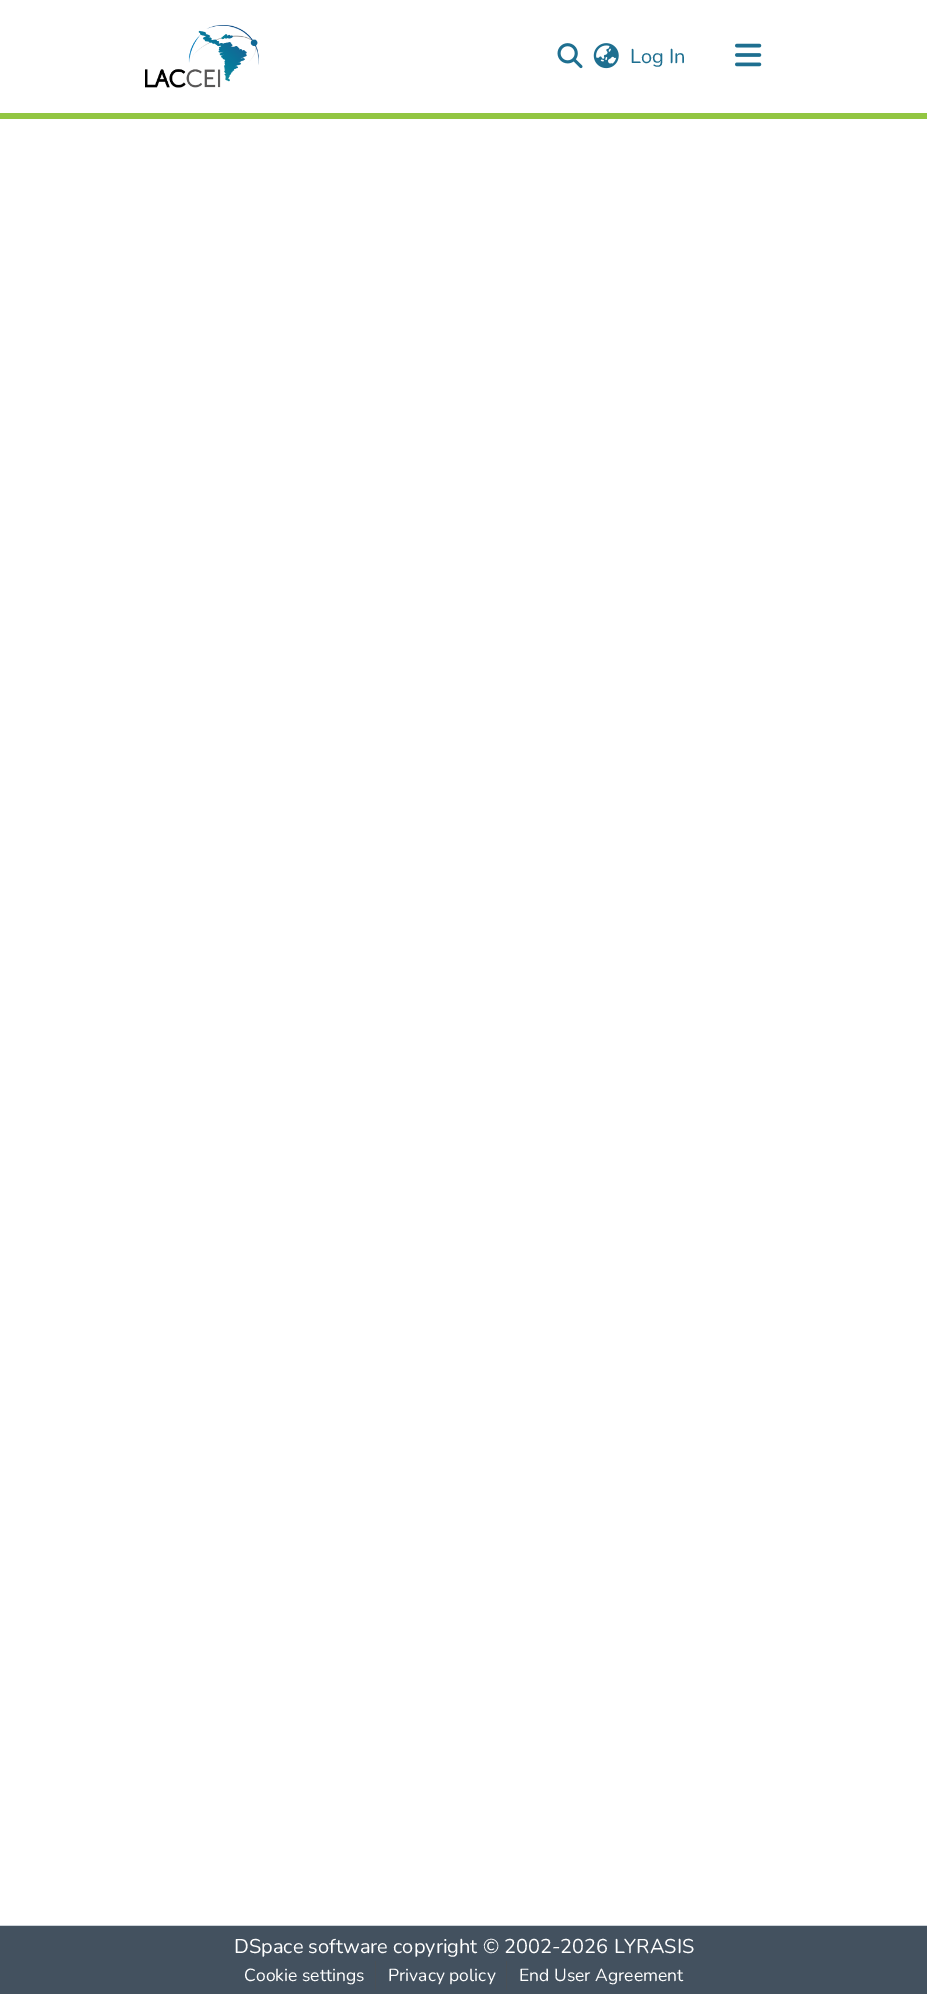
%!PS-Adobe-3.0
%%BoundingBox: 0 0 927 1994
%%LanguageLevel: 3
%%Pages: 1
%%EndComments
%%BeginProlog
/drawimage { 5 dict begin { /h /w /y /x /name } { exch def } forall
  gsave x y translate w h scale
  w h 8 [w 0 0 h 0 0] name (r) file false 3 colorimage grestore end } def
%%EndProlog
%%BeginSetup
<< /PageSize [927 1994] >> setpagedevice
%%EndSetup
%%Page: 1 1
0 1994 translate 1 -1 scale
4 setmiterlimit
1 setgray
0 0 927 1994 rectfill
0.573 0.776 0.259 setrgbcolor
0 113 927 6 rectfill
(images/1.raw) 145 25 114 63 drawimage
(images/2.raw) 557 43 26 26 drawimage
(images/3.raw) 593 43 26 26 drawimage
(images/4.raw) 735 43 27 24 drawimage
0.263 0.318 0.373 setrgbcolor
0 1926 927 68 rectfill
0.808 0.831 0.855 setrgbcolor
0 1925 927 1 rectfill
0.286 0.314 0.341 setrgbcolor
375 1961 1 29 rectfill
506 1961 1 29 rectfill
/Nunito-Regular [20 0 0 -20 0 0] selectfont
0.118 0.435 0.565 setrgbcolor
630 63 moveto (Log In) show
1 setgray
234 1953 moveto (DSpace software copyright © 2002-2026 LYRASIS) show
/Nunito-Regular [17.5 0 0 -17.5 0 0] selectfont
244 1981 moveto (Cookie settings) show
388 1981 moveto (Privacy policy) show
519 1981 moveto (End User Agreement) show
showpage
%%EOF
